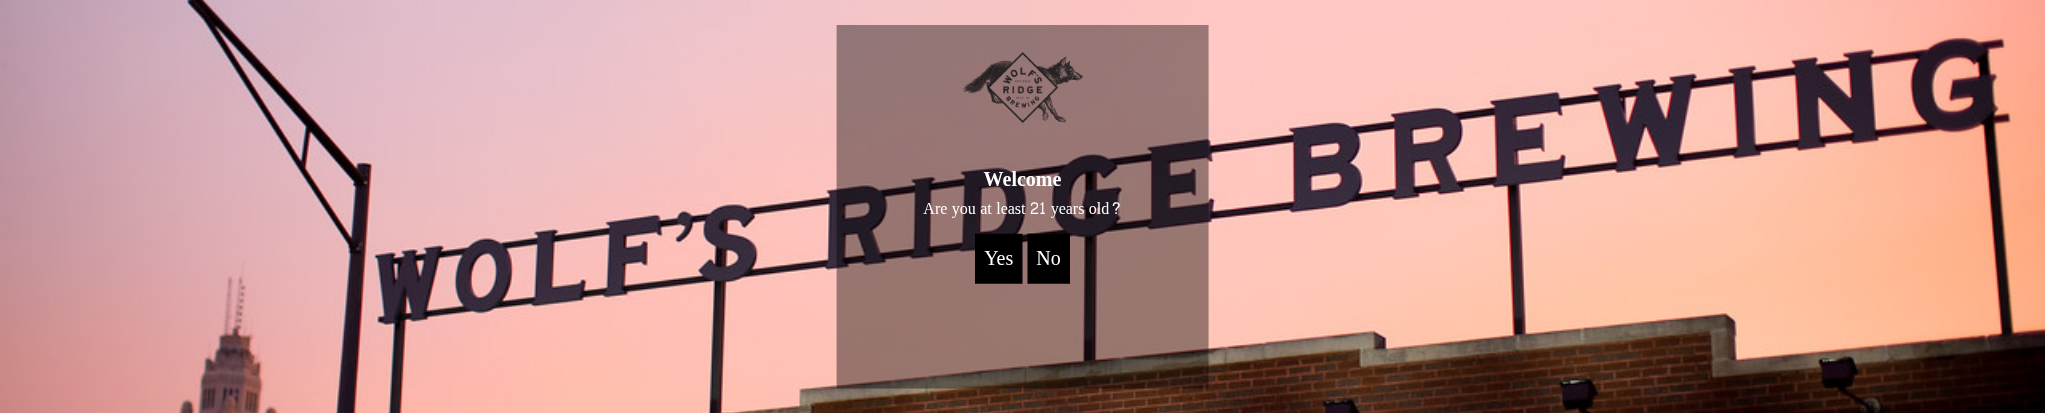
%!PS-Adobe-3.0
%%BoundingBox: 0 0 2045 413
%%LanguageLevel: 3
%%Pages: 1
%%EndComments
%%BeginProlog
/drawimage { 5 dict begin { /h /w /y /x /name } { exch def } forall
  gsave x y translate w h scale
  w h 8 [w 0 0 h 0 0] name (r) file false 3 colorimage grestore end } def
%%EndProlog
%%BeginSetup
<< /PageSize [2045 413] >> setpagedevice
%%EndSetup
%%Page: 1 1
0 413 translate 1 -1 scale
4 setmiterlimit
1 setgray
0 0 2045 413 rectfill
(images/1.raw) 0 0 2045 413 drawimage
(images/2.raw) 836 25 373 364 drawimage
showpage
%%EOF
